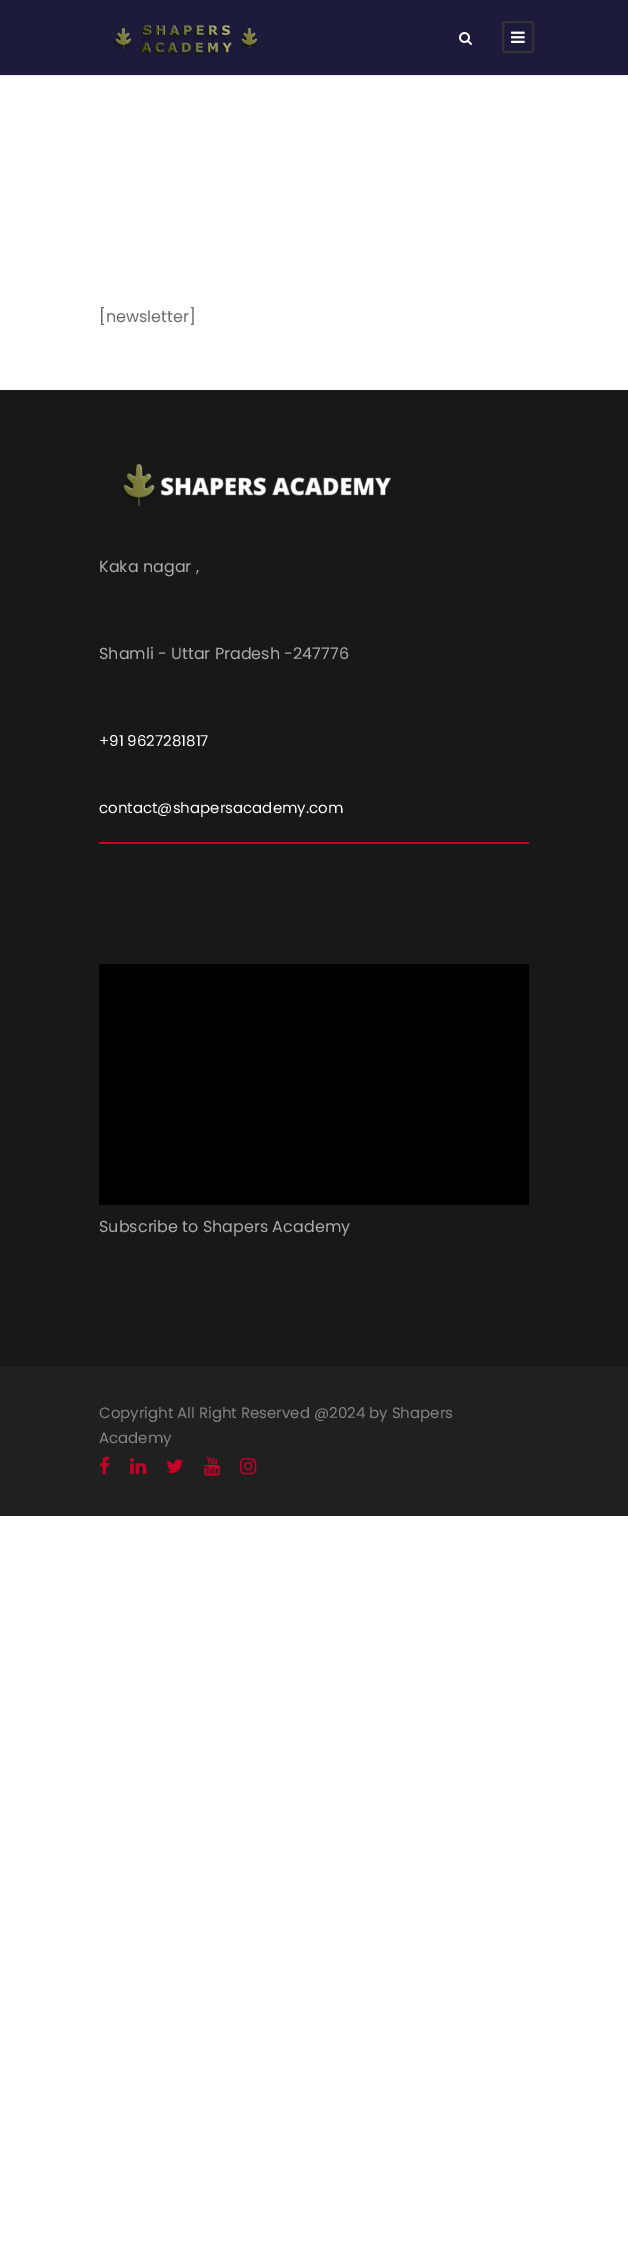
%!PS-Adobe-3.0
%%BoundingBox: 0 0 628 2259
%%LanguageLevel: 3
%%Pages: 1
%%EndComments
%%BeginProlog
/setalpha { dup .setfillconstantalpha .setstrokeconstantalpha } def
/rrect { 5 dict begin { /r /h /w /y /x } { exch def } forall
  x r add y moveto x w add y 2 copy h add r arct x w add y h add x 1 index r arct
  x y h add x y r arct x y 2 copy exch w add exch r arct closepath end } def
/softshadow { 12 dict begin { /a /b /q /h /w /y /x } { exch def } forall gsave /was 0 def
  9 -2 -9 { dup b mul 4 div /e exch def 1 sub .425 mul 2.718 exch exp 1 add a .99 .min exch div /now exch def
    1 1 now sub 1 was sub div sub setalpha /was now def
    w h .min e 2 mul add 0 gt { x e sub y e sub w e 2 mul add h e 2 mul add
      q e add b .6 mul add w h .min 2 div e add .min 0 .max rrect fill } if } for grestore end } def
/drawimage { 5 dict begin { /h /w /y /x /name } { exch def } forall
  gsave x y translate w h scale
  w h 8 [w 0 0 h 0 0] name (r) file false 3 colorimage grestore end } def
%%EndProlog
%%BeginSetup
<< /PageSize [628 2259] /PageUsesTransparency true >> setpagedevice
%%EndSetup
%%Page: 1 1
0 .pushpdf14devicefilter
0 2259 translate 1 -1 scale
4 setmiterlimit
1 setgray
0 0 628 2259 rectfill
0 setgray
0 1 628 75 0 1 0.1 softshadow
0.11 0.106 0.231 setrgbcolor
0 0 628 75 rectfill
(images/1.raw) 114 25 144 30 drawimage
(images/2.raw) 459 32 13 13 drawimage
0.2 setgray
2 setlinewidth
503 22 30 30 2 rrect stroke
(images/3.raw) 511 31 14 12 drawimage
0.094 setgray
0 390 628 977 rectfill
(images/4.raw) 122 464 269 44 drawimage
0.773 0.008 0.153 setrgbcolor
99 842 430 2 rectfill
0 setgray
99 964 430 241 rectfill
0.125 setgray
0 1367 628 149 rectfill
(images/5.raw) 100 1456 10 19 drawimage
(images/6.raw) 130 1458 17 16 drawimage
(images/7.raw) 166 1459 17 14 drawimage
(images/8.raw) 204 1456 16 20 drawimage
(images/9.raw) 240 1458 17 17 drawimage
/Poppins-Regular [16 0 0 -16 0 0] selectfont
0.42 setgray
99 322 moveto ([newsletter]) show
0.671 setgray
99 572 moveto (Kaka nagar ,) show
99 659 moveto (Shamli - Uttar Pradesh -247776) show
/Poppins-Regular [15 0 0 -15 0 0] selectfont
1 setgray
99 746 moveto (+91 9627281817) show
99 813 moveto (contact@shapersacademy.com) show
/Poppins-Regular [16 0 0 -16 0 0] selectfont
0.671 setgray
99 1232 moveto (Subscribe to Shapers Academy) show
/Poppins-Regular [15 0 0 -15 0 0] selectfont
0.514 setgray
99 1418 moveto (Copyright All Right Reserved @2024 by Shapers) show
99 1443 moveto (Academy) show
.poppdf14devicefilter showpage
%%EOF
